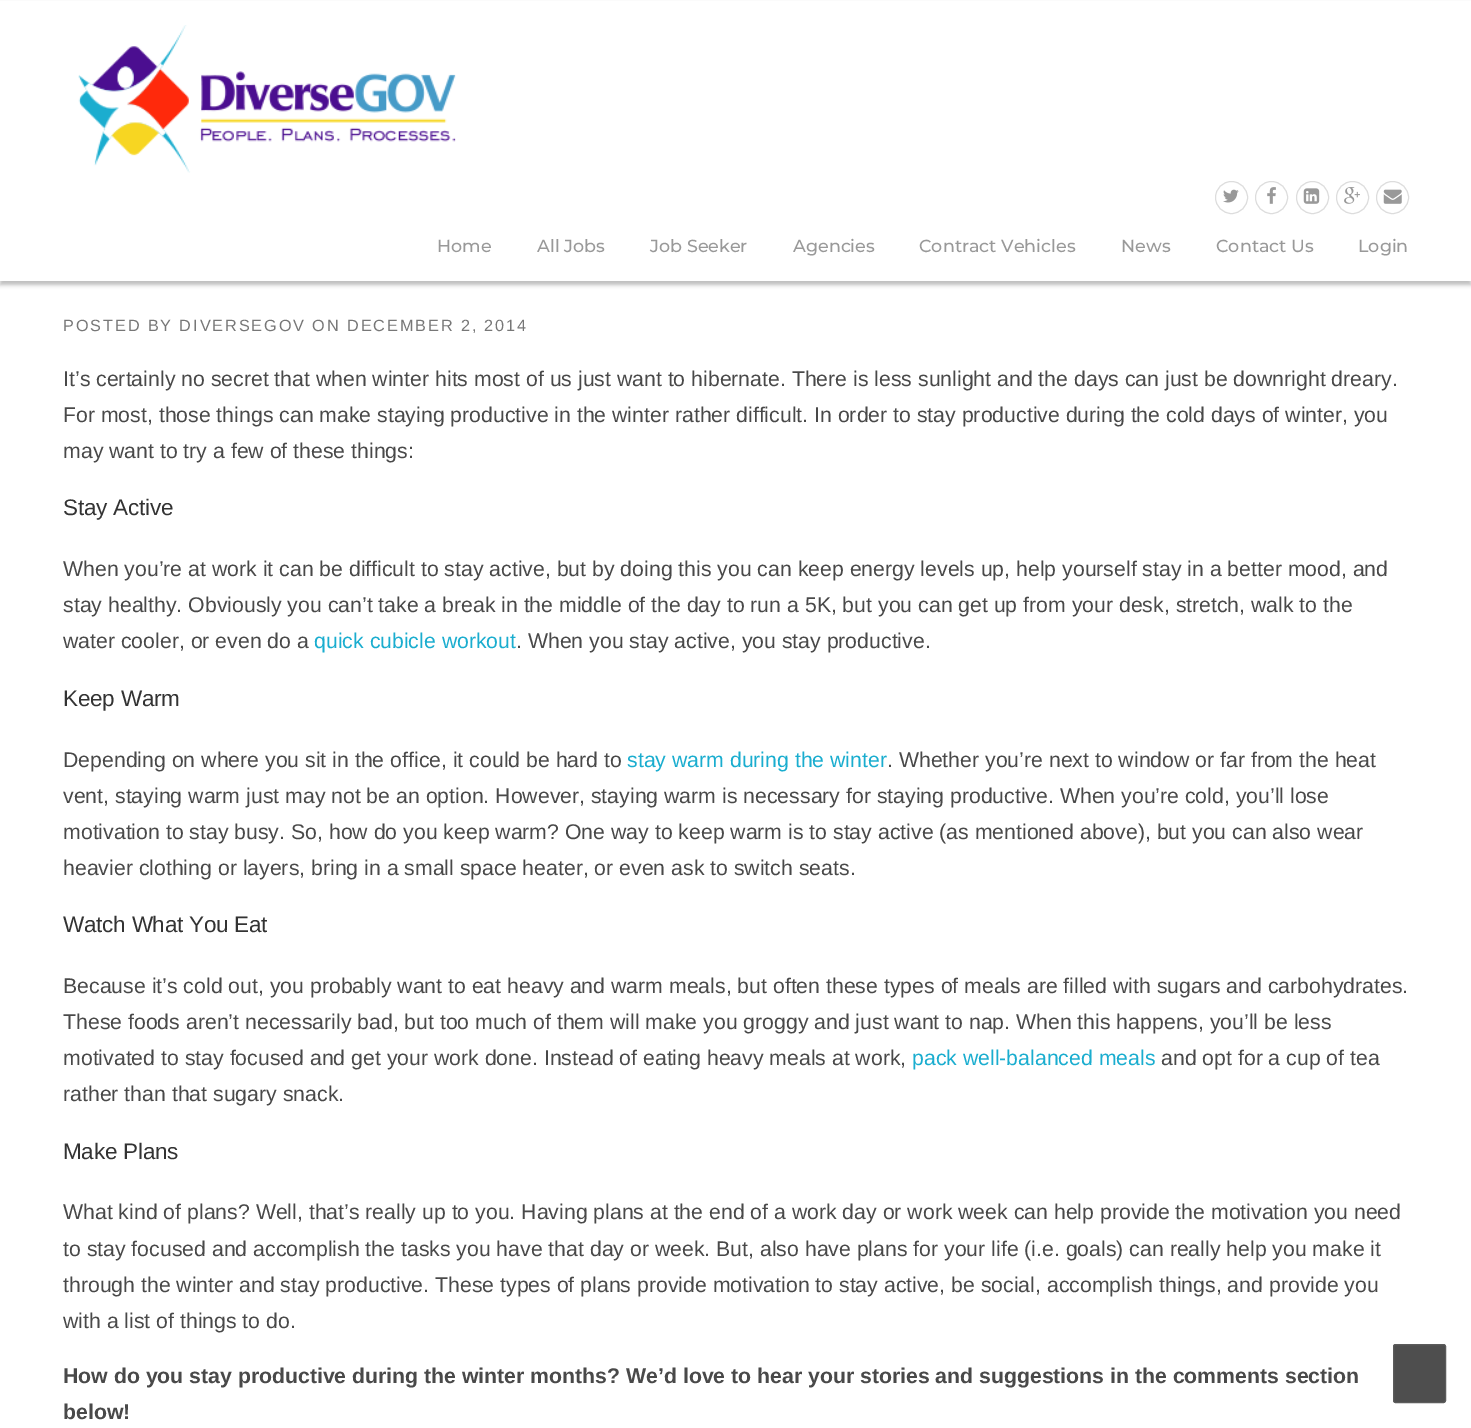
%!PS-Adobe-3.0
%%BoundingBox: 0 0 1471 1428
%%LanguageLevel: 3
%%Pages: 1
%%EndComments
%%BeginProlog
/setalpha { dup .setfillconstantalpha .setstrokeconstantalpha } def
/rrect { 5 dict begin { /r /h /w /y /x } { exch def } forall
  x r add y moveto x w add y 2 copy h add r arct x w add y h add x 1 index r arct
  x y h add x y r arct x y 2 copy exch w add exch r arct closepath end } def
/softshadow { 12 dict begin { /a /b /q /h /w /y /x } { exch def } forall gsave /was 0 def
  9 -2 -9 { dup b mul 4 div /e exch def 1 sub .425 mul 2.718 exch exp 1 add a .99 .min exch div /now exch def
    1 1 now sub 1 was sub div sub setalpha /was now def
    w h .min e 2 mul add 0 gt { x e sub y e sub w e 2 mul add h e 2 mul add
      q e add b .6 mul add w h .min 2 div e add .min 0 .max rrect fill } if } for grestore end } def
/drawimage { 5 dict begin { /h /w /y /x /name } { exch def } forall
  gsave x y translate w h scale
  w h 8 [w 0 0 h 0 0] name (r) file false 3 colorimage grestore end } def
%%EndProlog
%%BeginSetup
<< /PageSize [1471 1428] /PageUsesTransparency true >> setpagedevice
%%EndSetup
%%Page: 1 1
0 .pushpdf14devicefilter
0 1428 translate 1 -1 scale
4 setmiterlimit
1 setgray
0 0 1471 1428 rectfill
0 setgray
0 4 1471 281 0 2 0.25 softshadow
1 setgray
0 1 1471 280 rectfill
(images/1.raw) 78 25 378 148 drawimage
0.867 setgray
newpath 1231.5 197.5 16 0 360 arc closepath stroke
(images/2.raw) 1223 189 16 14 drawimage
newpath 1271.5 197.5 16 0 360 arc closepath stroke
(images/3.raw) 1267 187 9 17 drawimage
newpath 1312.5 197.5 16 0 360 arc closepath stroke
(images/4.raw) 1303 188 17 16 drawimage
newpath 1352.5 197.5 16 0 360 arc closepath stroke
(images/5.raw) 1344 187 16 17 drawimage
newpath 1392.5 197.5 16 0 360 arc closepath stroke
(images/6.raw) 1383 189 19 15 drawimage
0.306 setgray
1393.5 1344.5 52 58 2 rrect gsave fill grestore
0.361 setgray
stroke
/Montserrat-Medium [17.5 0 0 -17.5 0 0] selectfont
0.6 setgray
437 252 moveto (Home) show
537 252 moveto (All Jobs) show
650 252 moveto (Job Seeker) show
793 252 moveto (Agencies) show
919 252 moveto (Contract Vehicles) show
1121 252 moveto (News) show
1216 252 moveto (Contact Us) show
1358 252 moveto (Login) show
/LiberationSans-Regular [16.25 0 0 -16.25 0 0] selectfont
0.467 setgray
63 331 moveto 1.9 0 (POSTED BY DIVERSEGOV ON DECEMBER 2, 2014) ashow
/LiberationSans-Regular [21.25 0 0 -21.25 0 0] selectfont
0.286 setgray
63 386 moveto (It’s certainly no secret that when winter hits most of us just want to hibernate. There is less sunlight and the days can just be downright dreary.) show
63 422 moveto (For most, those things can make staying productive in the winter rather difficult. In order to stay productive during the cold days of winter, you) show
63 458 moveto (may want to try a few of these things:) show
/LiberationSans-Regular [22.5 0 0 -22.5 0 0] selectfont
0.2 setgray
63 515 moveto -0.25 0 (Stay Active) ashow
/LiberationSans-Regular [21.25 0 0 -21.25 0 0] selectfont
0.286 setgray
63 576 moveto (When you’re at work it can be difficult to stay active, but by doing this you can keep energy levels up, help yourself stay in a better mood, and) show
63 612 moveto (stay healthy. Obviously you can’t take a break in the middle of the day to run a 5K, but you can get up from your desk, stretch, walk to the) show
63 648 moveto (water cooler, or even do a) show
0.102 0.678 0.812 setrgbcolor
314 648 moveto (quick cubicle workout) show
0.286 setgray
516 648 moveto (. When you stay active, you stay productive.) show
/LiberationSans-Regular [22.5 0 0 -22.5 0 0] selectfont
0.2 setgray
63 706 moveto -0.25 0 (Keep Warm) ashow
/LiberationSans-Regular [21.25 0 0 -21.25 0 0] selectfont
0.286 setgray
63 767 moveto (Depending on where you sit in the office, it could be hard to) show
0.102 0.678 0.812 setrgbcolor
627 767 moveto (stay warm during the winter) show
0.286 setgray
887 767 moveto (. Whether you’re next to window or far from the heat) show
63 803 moveto (vent, staying warm just may not be an option. However, staying warm is necessary for staying productive. When you’re cold, you’ll lose) show
63 839 moveto (motivation to stay busy. So, how do you keep warm? One way to keep warm is to stay active \(as mentioned above\), but you can also wear) show
63 875 moveto (heavier clothing or layers, bring in a small space heater, or even ask to switch seats.) show
/LiberationSans-Regular [22.5 0 0 -22.5 0 0] selectfont
0.2 setgray
63 932 moveto -0.25 0 (Watch What You Eat) ashow
/LiberationSans-Regular [21.25 0 0 -21.25 0 0] selectfont
0.286 setgray
63 993 moveto (Because it’s cold out, you probably want to eat heavy and warm meals, but often these types of meals are filled with sugars and carbohydrates.) show
63 1029 moveto (These foods aren’t necessarily bad, but too much of them will make you groggy and just want to nap. When this happens, you’ll be less) show
63 1065 moveto (motivated to stay focused and get your work done. Instead of eating heavy meals at work,) show
0.102 0.678 0.812 setrgbcolor
912 1065 moveto (pack well-balanced meals) show
0.286 setgray
1161 1065 moveto (and opt for a cup of tea) show
63 1101 moveto (rather than that sugary snack.) show
/LiberationSans-Regular [22.5 0 0 -22.5 0 0] selectfont
0.2 setgray
63 1159 moveto -0.25 0 (Make Plans) ashow
/LiberationSans-Regular [21.25 0 0 -21.25 0 0] selectfont
0.286 setgray
63 1219 moveto (What kind of plans? Well, that’s really up to you. Having plans at the end of a work day or work week can help provide the motivation you need) show
63 1256 moveto (to stay focused and accomplish the tasks you have that day or week. But, also have plans for your life \(i.e. goals\) can really help you make it) show
63 1292 moveto (through the winter and stay productive. These types of plans provide motivation to stay active, be social, accomplish things, and provide you) show
63 1328 moveto (with a list of things to do.) show
/LiberationSans-Bold [21.25 0 0 -21.25 0 0] selectfont
63 1383 moveto (How do you stay productive during the winter months? We’d love to hear your stories and suggestions in the comments section) show
63 1419 moveto (below!) show
.poppdf14devicefilter showpage
%%EOF
